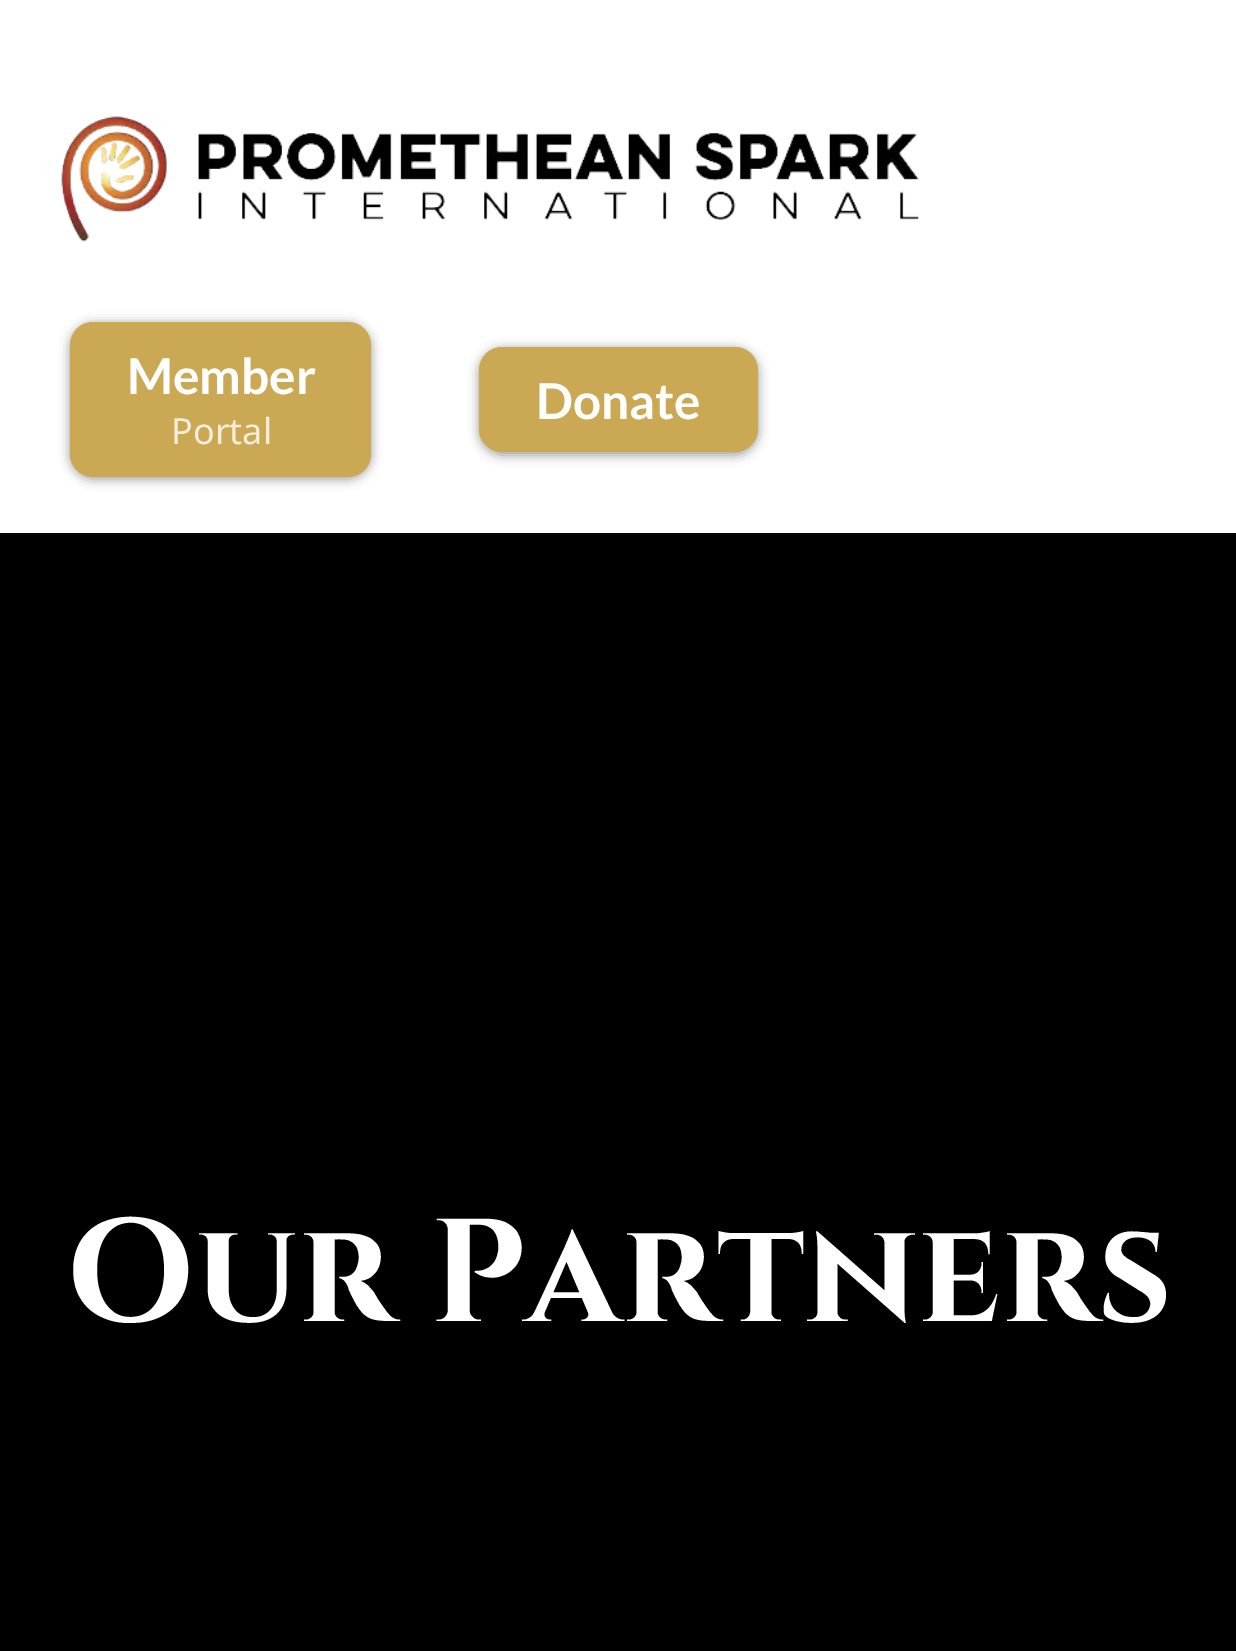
%!PS-Adobe-3.0
%%BoundingBox: 0 0 1236 1651
%%LanguageLevel: 3
%%Pages: 1
%%EndComments
%%BeginProlog
/setalpha { dup .setfillconstantalpha .setstrokeconstantalpha } def
/rrect { 5 dict begin { /r /h /w /y /x } { exch def } forall
  x r add y moveto x w add y 2 copy h add r arct x w add y h add x 1 index r arct
  x y h add x y r arct x y 2 copy exch w add exch r arct closepath end } def
/softshadow { 12 dict begin { /a /b /q /h /w /y /x } { exch def } forall gsave /was 0 def
  9 -2 -9 { dup b mul 4 div /e exch def 1 sub .425 mul 2.718 exch exp 1 add a .99 .min exch div /now exch def
    1 1 now sub 1 was sub div sub setalpha /was now def
    w h .min e 2 mul add 0 gt { x e sub y e sub w e 2 mul add h e 2 mul add
      q e add b .6 mul add w h .min 2 div e add .min 0 .max rrect fill } if } for grestore end } def
/drawimage { 5 dict begin { /h /w /y /x /name } { exch def } forall
  gsave x y translate w h scale
  w h 8 [w 0 0 h 0 0] name (r) file false 3 colorimage grestore end } def
%%EndProlog
%%BeginSetup
<< /PageSize [1236 1651] /PageUsesTransparency true >> setpagedevice
%%EndSetup
%%Page: 1 1
0 .pushpdf14devicefilter
0 1651 translate 1 -1 scale
4 setmiterlimit
1 setgray
0 0 1236 1651 rectfill
(images/1.raw) 61 116 858 126 drawimage
0 setgray
70 324 301 155 23 5.5 0.4 softshadow
0.796 0.663 0.329 setrgbcolor
70 322 301 155 23 rrect fill
0 setgray
479 349 279 106 23 5.5 0.4 softshadow
0.796 0.663 0.329 setrgbcolor
479 347 279 105 23 rrect fill
0 setgray
0 533 1236 1118 rectfill
/Lato-Bold [49.5 0 0 -49.5 0 0] selectfont
1 setgray
127 394 moveto (Member) show
/NotoSans-Regular [36 0 0 -36 0 0] selectfont
0.961 0.933 0.867 setrgbcolor
171 444 moveto (Portal) show
/Lato-Bold [49.5 0 0 -49.5 0 0] selectfont
1 setgray
536 419 moveto (Donate) show
/Cinzel-Bold [146.25 0 0 -146.25 0 0] selectfont
66 1321 moveto (Our Partners) show
.poppdf14devicefilter showpage
%%EOF
